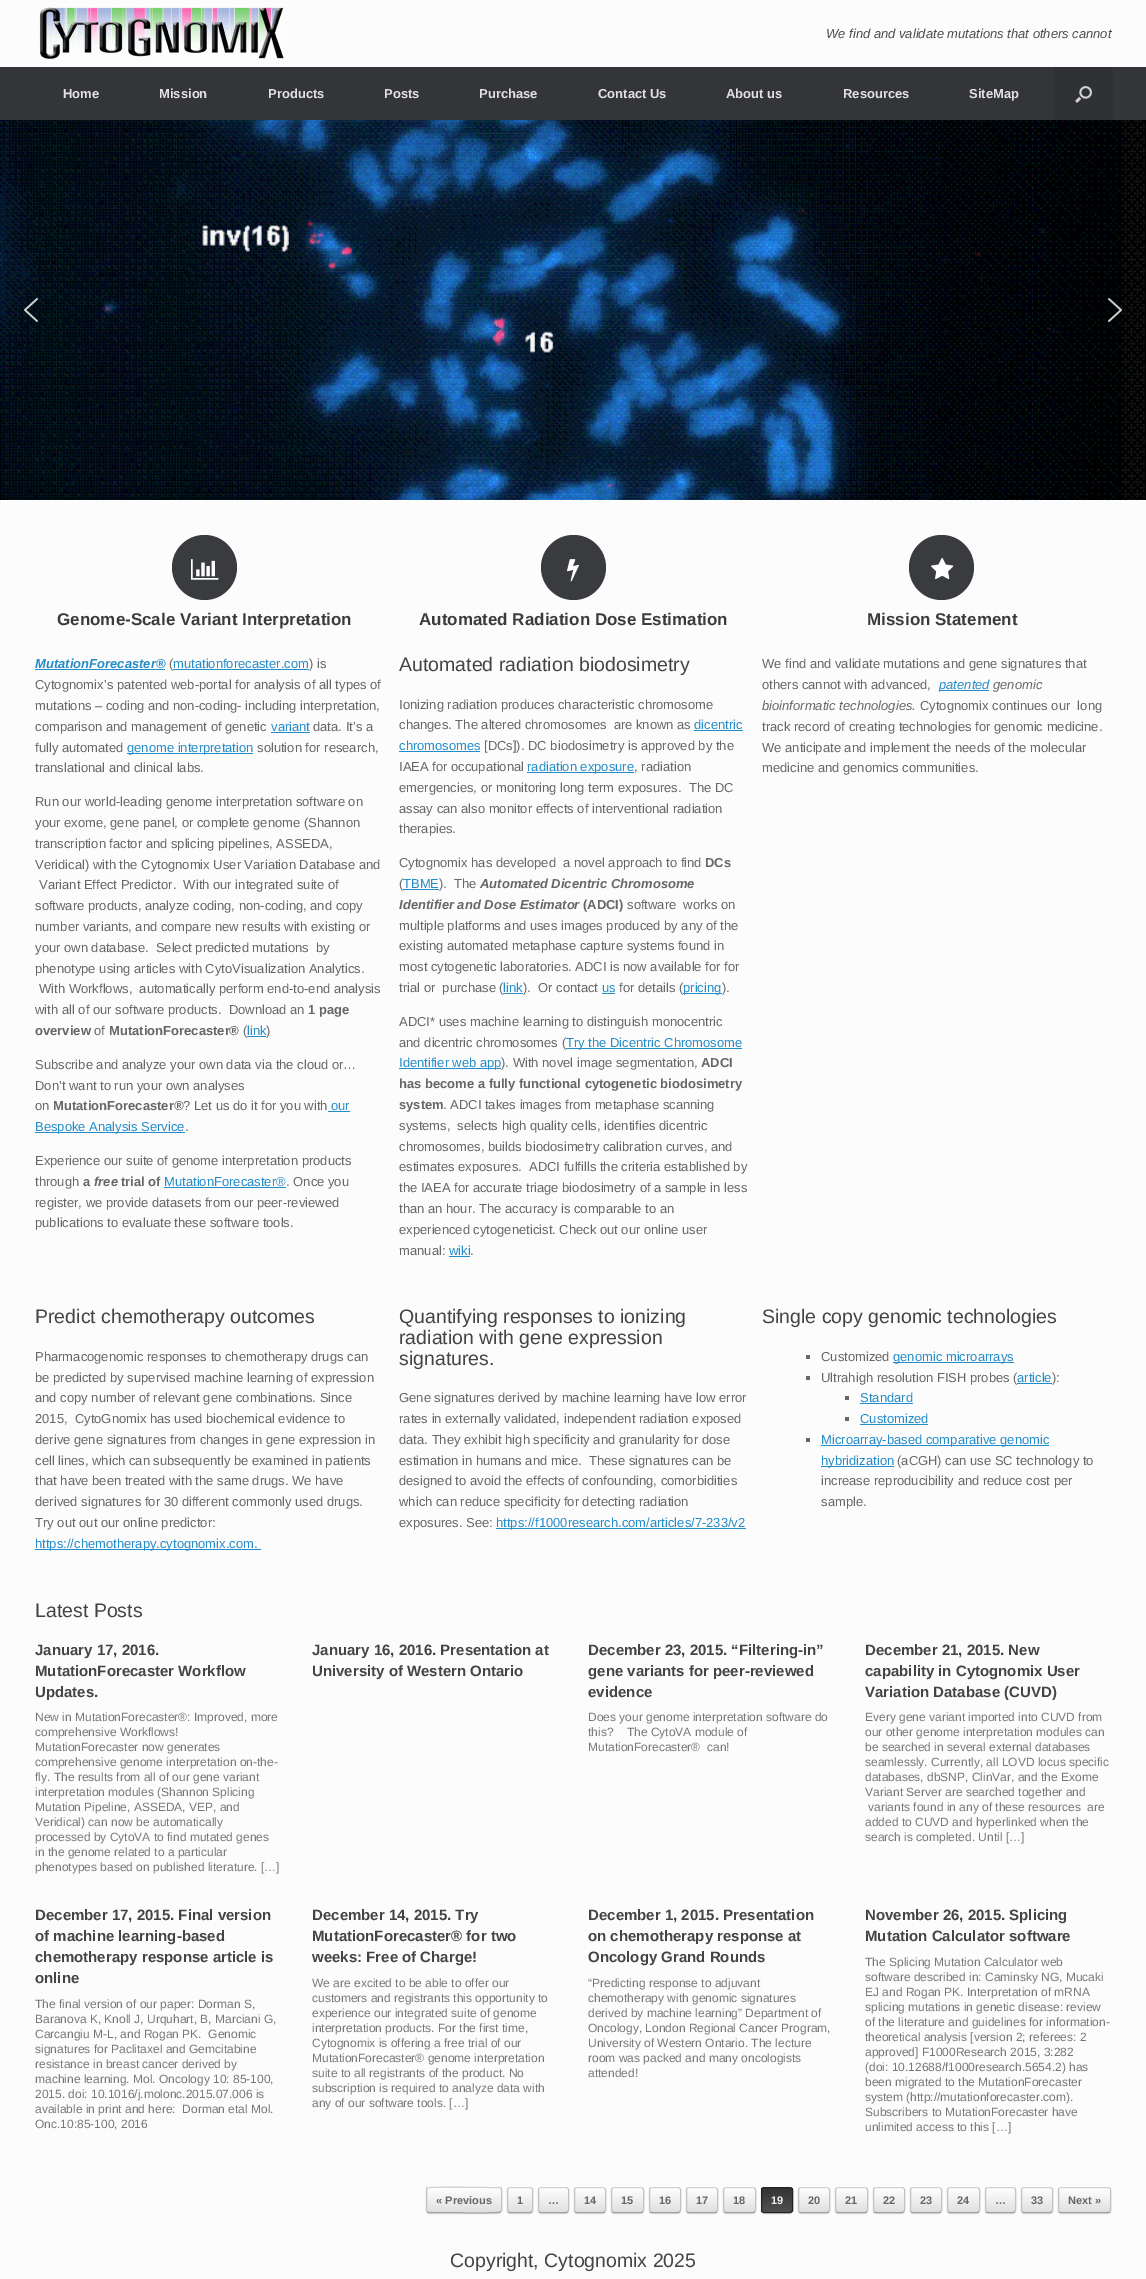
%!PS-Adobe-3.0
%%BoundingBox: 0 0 1146 2279
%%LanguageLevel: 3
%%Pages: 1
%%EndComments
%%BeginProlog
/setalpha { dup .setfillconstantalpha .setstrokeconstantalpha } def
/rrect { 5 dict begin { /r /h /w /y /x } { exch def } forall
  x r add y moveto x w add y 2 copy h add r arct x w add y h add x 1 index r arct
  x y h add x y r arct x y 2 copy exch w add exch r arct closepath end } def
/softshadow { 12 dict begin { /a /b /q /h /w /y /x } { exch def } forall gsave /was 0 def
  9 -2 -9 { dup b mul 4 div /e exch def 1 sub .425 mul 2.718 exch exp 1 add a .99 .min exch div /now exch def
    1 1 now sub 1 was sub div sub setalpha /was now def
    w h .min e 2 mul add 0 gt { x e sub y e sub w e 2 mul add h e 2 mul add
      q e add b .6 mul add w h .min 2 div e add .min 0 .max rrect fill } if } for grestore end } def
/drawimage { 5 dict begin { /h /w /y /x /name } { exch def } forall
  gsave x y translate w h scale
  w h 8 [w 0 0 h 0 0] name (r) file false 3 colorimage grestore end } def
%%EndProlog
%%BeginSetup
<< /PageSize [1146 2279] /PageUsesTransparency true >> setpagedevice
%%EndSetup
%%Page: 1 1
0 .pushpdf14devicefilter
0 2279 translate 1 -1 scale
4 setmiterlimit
0.988 setgray
0 0 1146 2279 rectfill
(images/1.raw) 39 7 245 52 drawimage
0.204 0.208 0.22 setrgbcolor
0 67 1146 53 rectfill
0.188 0.192 0.204 setrgbcolor
1054 67 59 53 rectfill
(images/2.raw) 1075 86 17 17 drawimage
(images/3.raw) 0 120 1146 380 drawimage
(images/4.raw) 24 298 14 24 drawimage
(images/5.raw) 1108 298 14 24 drawimage
0.227 0.231 0.243 setrgbcolor
newpath 204.5 567.5 32.5 0 360 arc closepath fill
(images/6.raw) 191 559 28 21 drawimage
newpath 573.5 567.5 32.5 0 360 arc closepath fill
(images/7.raw) 567 559 12 23 drawimage
newpath 941.5 567.5 32.5 0 360 arc closepath fill
(images/8.raw) 931 557 23 23 drawimage
0.141 0.549 0.784 setrgbcolor
35 669 130 1 rectfill
271 732 39 1 rectfill
127 753 126 1 rectfill
247 1036 19 1 rectfill
328 1111 22 1 rectfill
35 1132 150 1 rectfill
164 1187 122 1 rectfill
694 730 49 1 rectfill
399 751 81 1 rectfill
527 772 107 1 rectfill
403 889 36 1 rectfill
602 993 13 1 rectfill
566 1048 176 1 rectfill
399 1068 102 1 rectfill
449 1256 21 1 rectfill
939 690 50 1 rectfill
35 1549 226 1 rectfill
496 1528 250 1 rectfill
0.4 setgray
806 1355 4 4 rectfill
0.141 0.549 0.784 setrgbcolor
893 1362 121 1 rectfill
0.4 setgray
806 1376 4 4 rectfill
845 1396 4 4 rectfill
0.141 0.549 0.784 setrgbcolor
860 1403 53 1 rectfill
0.4 setgray
845 1417 4 4 rectfill
0.141 0.549 0.784 setrgbcolor
860 1424 68 1 rectfill
0.4 setgray
806 1438 4 4 rectfill
0.141 0.549 0.784 setrgbcolor
821 1445 228 1 rectfill
821 1466 73 1 rectfill
0 setgray
426 2188 76 26 3 0.5 0.12 softshadow
gsave
426 2187 76 26 3 rrect clip newpath
gsave newpath 426 2187 moveto 502 2187 lineto 502 2188 lineto 426 2188 lineto closepath clip newpath
<< /ShadingType 2 /ColorSpace /DeviceRGB /Coords [427 2188 427 2164] /Extend [true true] /Function << /FunctionType 2 /Domain [0 1] /C0 [0.875 0.875 0.875] /C1 [1 1 1] /N 1 >> >> shfill grestore
gsave newpath 426 2188 moveto 502 2188 lineto 502 2212 lineto 426 2212 lineto closepath clip newpath
<< /ShadingType 2 /ColorSpace /DeviceRGB /Coords [427 2212 427 2188] /Extend [true true] /Function << /FunctionType 2 /Domain [0 1] /C0 [0.875 0.875 0.875] /C1 [1 1 1] /N 1 >> >> shfill grestore
gsave newpath 426 2212 moveto 502 2212 lineto 502 2213 lineto 426 2213 lineto closepath clip newpath
<< /ShadingType 2 /ColorSpace /DeviceRGB /Coords [427 2236 427 2212] /Extend [true true] /Function << /FunctionType 2 /Domain [0 1] /C0 [0.875 0.875 0.875] /C1 [1 1 1] /N 1 >> >> shfill grestore
grestore
0.5 setalpha
1 setgray
newpath 429 2189 moveto 499 2189 lineto 500 2189 501 2190 501 2191 curveto 501 2185 491 2188 487 2188 curveto 441 2188 lineto 437 2188 427 2185 427 2191 curveto 427 2190 428 2189 429 2189 curveto closepath fill
1 setalpha
0.824 setgray
newpath 427 2188 moveto 427.5 2188 lineto 429.5 2186.5 480.5 2187.5 487.5 2187.5 curveto 499 2187.5 lineto 501 2188 lineto stroke
0.765 setgray
newpath 501 2188 moveto 501 2188.5 501.5 2189.5 501.5 2190 curveto 501.5 2210 lineto 501.5 2210.5 501 2211.5 501 2212 curveto stroke
0.624 setgray
newpath 501 2212 moveto 500.5 2212 lineto 498.5 2213.5 447.5 2212.5 440.5 2212.5 curveto 429 2212.5 lineto 427 2212 lineto stroke
0.765 setgray
newpath 427 2212 moveto 427 2211.5 426.5 2210.5 426.5 2210 curveto 426.5 2190 lineto 426.5 2189.5 427 2188.5 427 2188 curveto stroke
0 setgray
507 2188 26 26 3 0.5 0.12 softshadow
gsave
507 2187 26 26 3 rrect clip newpath
gsave newpath 507 2188 moveto 533 2188 lineto 533 2212 lineto 507 2212 lineto closepath clip newpath
<< /ShadingType 2 /ColorSpace /DeviceRGB /Coords [508 2212 508 2188] /Extend [true true] /Function << /FunctionType 2 /Domain [0 1] /C0 [0.875 0.875 0.875] /C1 [1 1 1] /N 1 >> >> shfill grestore
grestore
0.824 setgray
newpath 508 2188 moveto 508.5 2188 509.5 2187.5 510 2187.5 curveto 530 2187.5 lineto 530.5 2187.5 531.5 2188 532 2188 curveto stroke
0.765 setgray
newpath 532 2188 moveto 532 2188.5 532.5 2189.5 532.5 2190 curveto 532.5 2210 lineto 532.5 2210.5 532 2211.5 532 2212 curveto stroke
0.624 setgray
newpath 532 2212 moveto 531.5 2212 530.5 2212.5 530 2212.5 curveto 510 2212.5 lineto 509.5 2212.5 508.5 2212 508 2212 curveto stroke
0.765 setgray
newpath 508 2212 moveto 508 2211.5 507.5 2210.5 507.5 2210 curveto 507.5 2190 lineto 507.5 2189.5 508 2188.5 508 2188 curveto stroke
0 setgray
538 2188 31 26 3 0.5 0.12 softshadow
gsave
538 2187 31 26 3 rrect clip newpath
gsave newpath 538 2188 moveto 569 2188 lineto 569 2212 lineto 538 2212 lineto closepath clip newpath
<< /ShadingType 2 /ColorSpace /DeviceRGB /Coords [539 2212 539 2188] /Extend [true true] /Function << /FunctionType 2 /Domain [0 1] /C0 [0.875 0.875 0.875] /C1 [1 1 1] /N 1 >> >> shfill grestore
grestore
0.824 setgray
newpath 539 2188 moveto 539.5 2188 540.5 2187.5 541 2187.5 curveto 566 2187.5 lineto 566.5 2187.5 567.5 2188 568 2188 curveto stroke
0.765 setgray
newpath 568 2188 moveto 568 2188.5 568.5 2189.5 568.5 2190 curveto 568.5 2210 lineto 568.5 2210.5 568 2211.5 568 2212 curveto stroke
0.624 setgray
newpath 568 2212 moveto 567.5 2212 566.5 2212.5 566 2212.5 curveto 541 2212.5 lineto 540.5 2212.5 539.5 2212 539 2212 curveto stroke
0.765 setgray
newpath 539 2212 moveto 539 2211.5 538.5 2210.5 538.5 2210 curveto 538.5 2190 lineto 538.5 2189.5 539 2188.5 539 2188 curveto stroke
0 setgray
574 2188 32 26 3 0.5 0.12 softshadow
gsave
574 2187 32 26 3 rrect clip newpath
gsave newpath 574 2188 moveto 606 2188 lineto 606 2212 lineto 574 2212 lineto closepath clip newpath
<< /ShadingType 2 /ColorSpace /DeviceRGB /Coords [575 2212 575 2188] /Extend [true true] /Function << /FunctionType 2 /Domain [0 1] /C0 [0.875 0.875 0.875] /C1 [1 1 1] /N 1 >> >> shfill grestore
grestore
0.824 setgray
newpath 575 2188 moveto 575.5 2188 576.5 2187.5 577 2187.5 curveto 603 2187.5 lineto 603.5 2187.5 604.5 2188 605 2188 curveto stroke
0.765 setgray
newpath 605 2188 moveto 605 2188.5 605.5 2189.5 605.5 2190 curveto 605.5 2210 lineto 605.5 2210.5 605 2211.5 605 2212 curveto stroke
0.624 setgray
newpath 605 2212 moveto 604.5 2212 603.5 2212.5 603 2212.5 curveto 577 2212.5 lineto 576.5 2212.5 575.5 2212 575 2212 curveto stroke
0.765 setgray
newpath 575 2212 moveto 575 2211.5 574.5 2210.5 574.5 2210 curveto 574.5 2190 lineto 574.5 2189.5 575 2188.5 575 2188 curveto stroke
0 setgray
611 2188 33 26 3 0.5 0.12 softshadow
gsave
611 2187 33 26 3 rrect clip newpath
gsave newpath 611 2188 moveto 644 2188 lineto 644 2212 lineto 611 2212 lineto closepath clip newpath
<< /ShadingType 2 /ColorSpace /DeviceRGB /Coords [612 2212 612 2188] /Extend [true true] /Function << /FunctionType 2 /Domain [0 1] /C0 [0.875 0.875 0.875] /C1 [1 1 1] /N 1 >> >> shfill grestore
grestore
0.824 setgray
newpath 612 2188 moveto 612.5 2188 613.5 2187.5 614 2187.5 curveto 641 2187.5 lineto 641.5 2187.5 642.5 2188 643 2188 curveto stroke
0.765 setgray
newpath 643 2188 moveto 643 2188.5 643.5 2189.5 643.5 2190 curveto 643.5 2210 lineto 643.5 2210.5 643 2211.5 643 2212 curveto stroke
0.624 setgray
newpath 643 2212 moveto 642.5 2212 641.5 2212.5 641 2212.5 curveto 614 2212.5 lineto 613.5 2212.5 612.5 2212 612 2212 curveto stroke
0.765 setgray
newpath 612 2212 moveto 612 2211.5 611.5 2210.5 611.5 2210 curveto 611.5 2190 lineto 611.5 2189.5 612 2188.5 612 2188 curveto stroke
0 setgray
649 2188 32 26 3 0.5 0.12 softshadow
gsave
649 2187 32 26 3 rrect clip newpath
gsave newpath 649 2188 moveto 681 2188 lineto 681 2212 lineto 649 2212 lineto closepath clip newpath
<< /ShadingType 2 /ColorSpace /DeviceRGB /Coords [650 2212 650 2188] /Extend [true true] /Function << /FunctionType 2 /Domain [0 1] /C0 [0.875 0.875 0.875] /C1 [1 1 1] /N 1 >> >> shfill grestore
grestore
0.824 setgray
newpath 650 2188 moveto 650.5 2188 651.5 2187.5 652 2187.5 curveto 678 2187.5 lineto 678.5 2187.5 679.5 2188 680 2188 curveto stroke
0.765 setgray
newpath 680 2188 moveto 680 2188.5 680.5 2189.5 680.5 2190 curveto 680.5 2210 lineto 680.5 2210.5 680 2211.5 680 2212 curveto stroke
0.624 setgray
newpath 680 2212 moveto 679.5 2212 678.5 2212.5 678 2212.5 curveto 652 2212.5 lineto 651.5 2212.5 650.5 2212 650 2212 curveto stroke
0.765 setgray
newpath 650 2212 moveto 650 2211.5 649.5 2210.5 649.5 2210 curveto 649.5 2190 lineto 649.5 2189.5 650 2188.5 650 2188 curveto stroke
0 setgray
686 2188 32 26 3 0.5 0.12 softshadow
gsave
686 2187 32 26 3 rrect clip newpath
gsave newpath 686 2188 moveto 718 2188 lineto 718 2212 lineto 686 2212 lineto closepath clip newpath
<< /ShadingType 2 /ColorSpace /DeviceRGB /Coords [687 2212 687 2188] /Extend [true true] /Function << /FunctionType 2 /Domain [0 1] /C0 [0.875 0.875 0.875] /C1 [1 1 1] /N 1 >> >> shfill grestore
grestore
0.824 setgray
newpath 687 2188 moveto 687.5 2188 688.5 2187.5 689 2187.5 curveto 715 2187.5 lineto 715.5 2187.5 716.5 2188 717 2188 curveto stroke
0.765 setgray
newpath 717 2188 moveto 717 2188.5 717.5 2189.5 717.5 2190 curveto 717.5 2210 lineto 717.5 2210.5 717 2211.5 717 2212 curveto stroke
0.624 setgray
newpath 717 2212 moveto 716.5 2212 715.5 2212.5 715 2212.5 curveto 689 2212.5 lineto 688.5 2212.5 687.5 2212 687 2212 curveto stroke
0.765 setgray
newpath 687 2212 moveto 687 2211.5 686.5 2210.5 686.5 2210 curveto 686.5 2190 lineto 686.5 2189.5 687 2188.5 687 2188 curveto stroke
0 setgray
723 2188 33 26 3 0.5 0.12 softshadow
gsave
723 2187 33 26 3 rrect clip newpath
gsave newpath 723 2188 moveto 756 2188 lineto 756 2212 lineto 723 2212 lineto closepath clip newpath
<< /ShadingType 2 /ColorSpace /DeviceRGB /Coords [724 2212 724 2188] /Extend [true true] /Function << /FunctionType 2 /Domain [0 1] /C0 [0.875 0.875 0.875] /C1 [1 1 1] /N 1 >> >> shfill grestore
grestore
0.824 setgray
newpath 724 2188 moveto 724.5 2188 725.5 2187.5 726 2187.5 curveto 753 2187.5 lineto 753.5 2187.5 754.5 2188 755 2188 curveto stroke
0.765 setgray
newpath 755 2188 moveto 755 2188.5 755.5 2189.5 755.5 2190 curveto 755.5 2210 lineto 755.5 2210.5 755 2211.5 755 2212 curveto stroke
0.624 setgray
newpath 755 2212 moveto 754.5 2212 753.5 2212.5 753 2212.5 curveto 726 2212.5 lineto 725.5 2212.5 724.5 2212 724 2212 curveto stroke
0.765 setgray
newpath 724 2212 moveto 724 2211.5 723.5 2210.5 723.5 2210 curveto 723.5 2190 lineto 723.5 2189.5 724 2188.5 724 2188 curveto stroke
0 setgray
761 2188 32 26 3 0.5 0.12 softshadow
gsave
761 2187 32 26 3 rrect clip newpath
gsave newpath 761 2188 moveto 793 2188 lineto 793 2212 lineto 761 2212 lineto closepath clip newpath
<< /ShadingType 2 /ColorSpace /DeviceRGB /Coords [762 2212 762 2188] /Extend [true true] /Function << /FunctionType 2 /Domain [0 1] /C0 [0.314 0.314 0.314] /C1 [0.2 0.2 0.2] /N 1 >> >> shfill grestore
grestore
0.133 setgray
761.5 2187.5 31 25 2.5 rrect stroke
0 setgray
798 2188 32 26 3 0.5 0.12 softshadow
gsave
798 2187 32 26 3 rrect clip newpath
gsave newpath 798 2188 moveto 830 2188 lineto 830 2212 lineto 798 2212 lineto closepath clip newpath
<< /ShadingType 2 /ColorSpace /DeviceRGB /Coords [799 2212 799 2188] /Extend [true true] /Function << /FunctionType 2 /Domain [0 1] /C0 [0.875 0.875 0.875] /C1 [1 1 1] /N 1 >> >> shfill grestore
grestore
0.824 setgray
newpath 799 2188 moveto 799.5 2188 800.5 2187.5 801 2187.5 curveto 827 2187.5 lineto 827.5 2187.5 828.5 2188 829 2188 curveto stroke
0.765 setgray
newpath 829 2188 moveto 829 2188.5 829.5 2189.5 829.5 2190 curveto 829.5 2210 lineto 829.5 2210.5 829 2211.5 829 2212 curveto stroke
0.624 setgray
newpath 829 2212 moveto 828.5 2212 827.5 2212.5 827 2212.5 curveto 801 2212.5 lineto 800.5 2212.5 799.5 2212 799 2212 curveto stroke
0.765 setgray
newpath 799 2212 moveto 799 2211.5 798.5 2210.5 798.5 2210 curveto 798.5 2190 lineto 798.5 2189.5 799 2188.5 799 2188 curveto stroke
0 setgray
835 2188 33 26 3 0.5 0.12 softshadow
gsave
835 2187 33 26 3 rrect clip newpath
gsave newpath 835 2188 moveto 868 2188 lineto 868 2212 lineto 835 2212 lineto closepath clip newpath
<< /ShadingType 2 /ColorSpace /DeviceRGB /Coords [836 2212 836 2188] /Extend [true true] /Function << /FunctionType 2 /Domain [0 1] /C0 [0.875 0.875 0.875] /C1 [1 1 1] /N 1 >> >> shfill grestore
grestore
0.824 setgray
newpath 836 2188 moveto 836.5 2188 837.5 2187.5 838 2187.5 curveto 865 2187.5 lineto 865.5 2187.5 866.5 2188 867 2188 curveto stroke
0.765 setgray
newpath 867 2188 moveto 867 2188.5 867.5 2189.5 867.5 2190 curveto 867.5 2210 lineto 867.5 2210.5 867 2211.5 867 2212 curveto stroke
0.624 setgray
newpath 867 2212 moveto 866.5 2212 865.5 2212.5 865 2212.5 curveto 838 2212.5 lineto 837.5 2212.5 836.5 2212 836 2212 curveto stroke
0.765 setgray
newpath 836 2212 moveto 836 2211.5 835.5 2210.5 835.5 2210 curveto 835.5 2190 lineto 835.5 2189.5 836 2188.5 836 2188 curveto stroke
0 setgray
873 2188 32 26 3 0.5 0.12 softshadow
gsave
873 2187 32 26 3 rrect clip newpath
gsave newpath 873 2188 moveto 905 2188 lineto 905 2212 lineto 873 2212 lineto closepath clip newpath
<< /ShadingType 2 /ColorSpace /DeviceRGB /Coords [874 2212 874 2188] /Extend [true true] /Function << /FunctionType 2 /Domain [0 1] /C0 [0.875 0.875 0.875] /C1 [1 1 1] /N 1 >> >> shfill grestore
grestore
0.824 setgray
newpath 874 2188 moveto 874.5 2188 875.5 2187.5 876 2187.5 curveto 902 2187.5 lineto 902.5 2187.5 903.5 2188 904 2188 curveto stroke
0.765 setgray
newpath 904 2188 moveto 904 2188.5 904.5 2189.5 904.5 2190 curveto 904.5 2210 lineto 904.5 2210.5 904 2211.5 904 2212 curveto stroke
0.624 setgray
newpath 904 2212 moveto 903.5 2212 902.5 2212.5 902 2212.5 curveto 876 2212.5 lineto 875.5 2212.5 874.5 2212 874 2212 curveto stroke
0.765 setgray
newpath 874 2212 moveto 874 2211.5 873.5 2210.5 873.5 2210 curveto 873.5 2190 lineto 873.5 2189.5 874 2188.5 874 2188 curveto stroke
0 setgray
910 2188 32 26 3 0.5 0.12 softshadow
gsave
910 2187 32 26 3 rrect clip newpath
gsave newpath 910 2188 moveto 942 2188 lineto 942 2212 lineto 910 2212 lineto closepath clip newpath
<< /ShadingType 2 /ColorSpace /DeviceRGB /Coords [911 2212 911 2188] /Extend [true true] /Function << /FunctionType 2 /Domain [0 1] /C0 [0.875 0.875 0.875] /C1 [1 1 1] /N 1 >> >> shfill grestore
grestore
0.824 setgray
newpath 911 2188 moveto 911.5 2188 912.5 2187.5 913 2187.5 curveto 939 2187.5 lineto 939.5 2187.5 940.5 2188 941 2188 curveto stroke
0.765 setgray
newpath 941 2188 moveto 941 2188.5 941.5 2189.5 941.5 2190 curveto 941.5 2210 lineto 941.5 2210.5 941 2211.5 941 2212 curveto stroke
0.624 setgray
newpath 941 2212 moveto 940.5 2212 939.5 2212.5 939 2212.5 curveto 913 2212.5 lineto 912.5 2212.5 911.5 2212 911 2212 curveto stroke
0.765 setgray
newpath 911 2212 moveto 911 2211.5 910.5 2210.5 910.5 2210 curveto 910.5 2190 lineto 910.5 2189.5 911 2188.5 911 2188 curveto stroke
0 setgray
947 2188 33 26 3 0.5 0.12 softshadow
gsave
947 2187 33 26 3 rrect clip newpath
gsave newpath 947 2188 moveto 980 2188 lineto 980 2212 lineto 947 2212 lineto closepath clip newpath
<< /ShadingType 2 /ColorSpace /DeviceRGB /Coords [948 2212 948 2188] /Extend [true true] /Function << /FunctionType 2 /Domain [0 1] /C0 [0.875 0.875 0.875] /C1 [1 1 1] /N 1 >> >> shfill grestore
grestore
0.824 setgray
newpath 948 2188 moveto 948.5 2188 949.5 2187.5 950 2187.5 curveto 977 2187.5 lineto 977.5 2187.5 978.5 2188 979 2188 curveto stroke
0.765 setgray
newpath 979 2188 moveto 979 2188.5 979.5 2189.5 979.5 2190 curveto 979.5 2210 lineto 979.5 2210.5 979 2211.5 979 2212 curveto stroke
0.624 setgray
newpath 979 2212 moveto 978.5 2212 977.5 2212.5 977 2212.5 curveto 950 2212.5 lineto 949.5 2212.5 948.5 2212 948 2212 curveto stroke
0.765 setgray
newpath 948 2212 moveto 948 2211.5 947.5 2210.5 947.5 2210 curveto 947.5 2190 lineto 947.5 2189.5 948 2188.5 948 2188 curveto stroke
0 setgray
985 2188 31 26 3 0.5 0.12 softshadow
gsave
985 2187 31 26 3 rrect clip newpath
gsave newpath 985 2188 moveto 1016 2188 lineto 1016 2212 lineto 985 2212 lineto closepath clip newpath
<< /ShadingType 2 /ColorSpace /DeviceRGB /Coords [986 2212 986 2188] /Extend [true true] /Function << /FunctionType 2 /Domain [0 1] /C0 [0.875 0.875 0.875] /C1 [1 1 1] /N 1 >> >> shfill grestore
grestore
0.824 setgray
newpath 986 2188 moveto 986.5 2188 987.5 2187.5 988 2187.5 curveto 1013 2187.5 lineto 1013.5 2187.5 1014.5 2188 1015 2188 curveto stroke
0.765 setgray
newpath 1015 2188 moveto 1015 2188.5 1015.5 2189.5 1015.5 2190 curveto 1015.5 2210 lineto 1015.5 2210.5 1015 2211.5 1015 2212 curveto stroke
0.624 setgray
newpath 1015 2212 moveto 1014.5 2212 1013.5 2212.5 1013 2212.5 curveto 988 2212.5 lineto 987.5 2212.5 986.5 2212 986 2212 curveto stroke
0.765 setgray
newpath 986 2212 moveto 986 2211.5 985.5 2210.5 985.5 2210 curveto 985.5 2190 lineto 985.5 2189.5 986 2188.5 986 2188 curveto stroke
0 setgray
1021 2188 32 26 3 0.5 0.12 softshadow
gsave
1021 2187 32 26 3 rrect clip newpath
gsave newpath 1021 2188 moveto 1053 2188 lineto 1053 2212 lineto 1021 2212 lineto closepath clip newpath
<< /ShadingType 2 /ColorSpace /DeviceRGB /Coords [1022 2212 1022 2188] /Extend [true true] /Function << /FunctionType 2 /Domain [0 1] /C0 [0.875 0.875 0.875] /C1 [1 1 1] /N 1 >> >> shfill grestore
grestore
0.824 setgray
newpath 1022 2188 moveto 1022.5 2188 1023.5 2187.5 1024 2187.5 curveto 1050 2187.5 lineto 1050.5 2187.5 1051.5 2188 1052 2188 curveto stroke
0.765 setgray
newpath 1052 2188 moveto 1052 2188.5 1052.5 2189.5 1052.5 2190 curveto 1052.5 2210 lineto 1052.5 2210.5 1052 2211.5 1052 2212 curveto stroke
0.624 setgray
newpath 1052 2212 moveto 1051.5 2212 1050.5 2212.5 1050 2212.5 curveto 1024 2212.5 lineto 1023.5 2212.5 1022.5 2212 1022 2212 curveto stroke
0.765 setgray
newpath 1022 2212 moveto 1022 2211.5 1021.5 2210.5 1021.5 2210 curveto 1021.5 2190 lineto 1021.5 2189.5 1022 2188.5 1022 2188 curveto stroke
0 setgray
1058 2188 53 26 3 0.5 0.12 softshadow
gsave
1058 2187 53 26 3 rrect clip newpath
gsave newpath 1058 2188 moveto 1111 2188 lineto 1111 2212 lineto 1058 2212 lineto closepath clip newpath
<< /ShadingType 2 /ColorSpace /DeviceRGB /Coords [1059 2212 1059 2188] /Extend [true true] /Function << /FunctionType 2 /Domain [0 1] /C0 [0.875 0.875 0.875] /C1 [1 1 1] /N 1 >> >> shfill grestore
grestore
0.824 setgray
newpath 1059 2188 moveto 1061 2187.5 lineto 1108 2187.5 lineto 1110 2188 lineto stroke
0.765 setgray
newpath 1110 2188 moveto 1110 2188.5 1110.5 2189.5 1110.5 2190 curveto 1110.5 2210 lineto 1110.5 2210.5 1110 2211.5 1110 2212 curveto stroke
0.624 setgray
newpath 1110 2212 moveto 1108 2212.5 lineto 1061 2212.5 lineto 1059 2212 lineto stroke
0.765 setgray
newpath 1059 2212 moveto 1059 2211.5 1058.5 2210.5 1058.5 2210 curveto 1058.5 2190 lineto 1058.5 2189.5 1059 2188.5 1059 2188 curveto stroke
/LiberationSans-Italic [13 0 0 -13 0 0] selectfont
0.294 setgray
826 38 moveto (We find and validate mutations that others cannot) show
/LiberationSans-Bold [13 0 0 -13 0 0] selectfont
0.886 setgray
63 98 moveto (Home) show
159 98 moveto (Mission) show
268 98 moveto (Products) show
384 98 moveto (Posts) show
479 98 moveto (Purchase) show
598 98 moveto (Contact Us) show
726 98 moveto (About us) show
843 98 moveto (Resources) show
969 98 moveto (SiteMap) show
/LiberationSans-Bold [17 0 0 -17 0 0] selectfont
0.231 setgray
57 625 moveto (Genome-Scale Variant Interpretation) show
419 625 moveto (Automated Radiation Dose Estimation) show
867 625 moveto (Mission Statement) show
/LiberationSans-BoldItalic [13 0 0 -13 0 0] selectfont
0.141 0.549 0.784 setrgbcolor
35 668 moveto (MutationForecaster®) show
/LiberationSans-Regular [13 0 0 -13 0 0] selectfont
0.4 setgray
169 668 moveto (\() show
0.141 0.549 0.784 setrgbcolor
173 668 moveto (mutationforecaster.com) show
173 669 136 1 rectfill
0.4 setgray
309 668 moveto (\) is) show
35 689 moveto (Cytognomix’s patented web-portal for analysis of all types of) show
35 710 moveto (mutations – coding and non-coding- including interpretation,) show
35 731 moveto (comparison and management of genetic) show
0.141 0.549 0.784 setrgbcolor
271 731 moveto (variant) show
0.4 setgray
313 731 moveto (data. It’s a) show
35 752 moveto (fully automated) show
0.141 0.549 0.784 setrgbcolor
127 752 moveto (genome interpretation) show
0.4 setgray
257 752 moveto (solution for research,) show
35 772 moveto (translational and clinical labs.) show
35 806 moveto (Run our world-leading genome interpretation software on) show
35 827 moveto (your exome, gene panel, or complete genome \(Shannon) show
35 848 moveto (transcription factor and splicing pipelines, ASSEDA,) show
35 869 moveto (Veridical\) with the Cytognomix User Variation Database and) show
39 889 moveto (Variant Effect Predictor.  With our integrated suite of) show
35 910 moveto (software products, analyze coding, non-coding, and copy) show
35 931 moveto (number variants, and compare new results with existing or) show
35 952 moveto (your own database.  Select predicted mutations  by) show
35 973 moveto (phenotype using articles with CytoVisualization Analytics.) show
39 993 moveto (With Workflows,  automatically perform end-to-end analysis) show
35 1014 moveto (with all of our software products.  Download an) show
/LiberationSans-Bold [13 0 0 -13 0 0] selectfont
308 1014 moveto (1 page) show
35 1035 moveto (overview) show
/LiberationSans-Regular [13 0 0 -13 0 0] selectfont
94 1035 moveto (of) show
/LiberationSans-Bold [13 0 0 -13 0 0] selectfont
109 1035 moveto (MutationForecaster) show
/LiberationSans-BoldItalic [13 0 0 -13 0 0] selectfont
229 1035 moveto (®) show
/LiberationSans-Regular [13 0 0 -13 0 0] selectfont
243 1035 moveto (\() show
0.141 0.549 0.784 setrgbcolor
247 1035 moveto (link) show
0.4 setgray
266 1035 moveto (\)) show
35 1069 moveto (Subscribe and analyze your own data via the cloud or…) show
35 1090 moveto (Don’t want to run your own analyses) show
35 1110 moveto (on) show
/LiberationSans-Bold [13 0 0 -13 0 0] selectfont
53 1110 moveto (MutationForecaster) show
/LiberationSans-BoldItalic [13 0 0 -13 0 0] selectfont
174 1110 moveto (®) show
/LiberationSans-Regular [13 0 0 -13 0 0] selectfont
183 1110 moveto (? Let us do it for you with) show
0.141 0.549 0.784 setrgbcolor
331 1110 moveto (our) show
35 1131 moveto (Bespoke Analysis Service) show
0.4 setgray
185 1131 moveto (.) show
35 1165 moveto (Experience our suite of genome interpretation products) show
35 1186 moveto (through) show
/LiberationSans-Bold [13 0 0 -13 0 0] selectfont
83 1186 moveto (a) show
/LiberationSans-BoldItalic [13 0 0 -13 0 0] selectfont
94 1186 moveto (free) show
/LiberationSans-Bold [13 0 0 -13 0 0] selectfont
121 1186 moveto (trial of) show
/LiberationSans-Regular [13 0 0 -13 0 0] selectfont
0.141 0.549 0.784 setrgbcolor
164 1186 moveto (MutationForecaster®) show
0.4 setgray
286 1186 moveto (. Once you) show
35 1207 moveto (register, we provide datasets from our peer-reviewed) show
35 1227 moveto (publications to evaluate these software tools.) show
/LiberationSans-Regular [19.5 0 0 -19.5 0 0] selectfont
0.267 setgray
399 671 moveto (Automated radiation biodosimetry) show
/LiberationSans-Regular [13 0 0 -13 0 0] selectfont
0.4 setgray
399 709 moveto (Ionizing radiation produces characteristic chromosome) show
399 729 moveto (changes. The altered chromosomes  are known as) show
0.141 0.549 0.784 setrgbcolor
694 729 moveto (dicentric) show
399 750 moveto (chromosomes) show
0.4 setgray
484 750 moveto ([DCs]\). DC biodosimetry is approved by the) show
399 771 moveto (IAEA for occupational) show
0.141 0.549 0.784 setrgbcolor
527 771 moveto (radiation exposure) show
0.4 setgray
634 771 moveto (, radiation) show
399 792 moveto (emergencies, or monitoring long term exposures.  The DC) show
399 813 moveto (assay can also monitor effects of interventional radiation) show
399 833 moveto (therapies.) show
399 867 moveto (Cytognomix has developed  a novel approach to find) show
/LiberationSans-Bold [13 0 0 -13 0 0] selectfont
705 867 moveto (DCs) show
/LiberationSans-Regular [13 0 0 -13 0 0] selectfont
399 888 moveto (\() show
0.141 0.549 0.784 setrgbcolor
403 888 moveto (TBME) show
0.4 setgray
439 888 moveto (\).  The) show
/LiberationSans-BoldItalic [13 0 0 -13 0 0] selectfont
480 888 moveto (Automated Dicentric Chromosome) show
399 909 moveto (Identifier and Dose Estimator) show
/LiberationSans-Bold [13 0 0 -13 0 0] selectfont
583 909 moveto (\(ADCI\)) show
/LiberationSans-Regular [13 0 0 -13 0 0] selectfont
627 909 moveto (software  works on) show
399 930 moveto (multiple platforms and uses images produced by any of the) show
399 950 moveto (existing automated metaphase capture systems found in) show
399 971 moveto (most cytogenetic laboratories. ADCI is now available for for) show
399 992 moveto (trial or  purchase \() show
0.141 0.549 0.784 setrgbcolor
503 992 moveto (link) show
503 993 20 1 rectfill
0.4 setgray
523 992 moveto (\).  Or contact) show
0.141 0.549 0.784 setrgbcolor
602 992 moveto (us) show
0.4 setgray
619 992 moveto (for details \() show
0.141 0.549 0.784 setrgbcolor
683 993 39 1 rectfill
683 992 moveto (pricing) show
0.4 setgray
722 992 moveto (\).) show
399 1026 moveto (ADCI* uses machine learning to distinguish monocentric) show
399 1047 moveto (and dicentric chromosomes \() show
0.141 0.549 0.784 setrgbcolor
566 1047 moveto (Try the Dicentric Chromosome) show
399 1067 moveto (Identifier web app) show
0.4 setgray
501 1067 moveto (\). With novel image segmentation,) show
/LiberationSans-Bold [13 0 0 -13 0 0] selectfont
701 1067 moveto (ADCI) show
399 1088 moveto (has become a fully functional cytogenetic biodosimetry) show
399 1109 moveto (system) show
/LiberationSans-Regular [13 0 0 -13 0 0] selectfont
443 1109 moveto (. ADCI takes images from metaphase scanning) show
399 1130 moveto (systems,  selects high quality cells, identifies dicentric) show
399 1151 moveto (chromosomes, builds biodosimetry calibration curves, and) show
399 1171 moveto (estimates exposures.  ADCI fulfills the criteria established by) show
399 1192 moveto (the IAEA for accurate triage biodosimetry of a sample in less) show
399 1213 moveto (than an hour. The accuracy is comparable to an) show
399 1234 moveto (experienced cytogeneticist. Check out our online user) show
399 1255 moveto (manual:) show
0.141 0.549 0.784 setrgbcolor
449 1255 moveto (wiki) show
0.4 setgray
470 1255 moveto (.) show
762 668 moveto (We find and validate mutations and gene signatures that) show
762 689 moveto (others cannot with advanced,) show
/LiberationSans-Italic [13 0 0 -13 0 0] selectfont
0.141 0.549 0.784 setrgbcolor
939 689 moveto (patented) show
0.4 setgray
993 689 moveto (genomic) show
762 710 moveto (bioinformatic technologies.) show
/LiberationSans-Regular [13 0 0 -13 0 0] selectfont
920 710 moveto (Cytognomix continues our  long) show
762 731 moveto (track record of creating technologies for genomic medicine.) show
762 752 moveto (We anticipate and implement the needs of the molecular) show
762 772 moveto (medicine and genomics communities.) show
/LiberationSans-Regular [19.5 0 0 -19.5 0 0] selectfont
0.267 setgray
35 1323 moveto (Predict chemotherapy outcomes) show
/LiberationSans-Regular [13 0 0 -13 0 0] selectfont
0.4 setgray
35 1361 moveto (Pharmacogenomic responses to chemotherapy drugs can) show
35 1382 moveto (be predicted by supervised machine learning of expression) show
35 1402 moveto (and copy number of relevant gene combinations. Since) show
35 1423 moveto (2015,  CytoGnomix has used biochemical evidence to) show
35 1444 moveto (derive gene signatures from changes in gene expression in) show
35 1465 moveto (cell lines, which can subsequently be examined in patients) show
35 1485 moveto (that have been treated with the same drugs. We have) show
35 1506 moveto (derived signatures for 30 different commonly used drugs.) show
35 1527 moveto (Try out out our online predictor:) show
0.141 0.549 0.784 setrgbcolor
35 1548 moveto (https://chemotherapy.cytognomix.com.) show
/LiberationSans-Regular [19.5 0 0 -19.5 0 0] selectfont
0.267 setgray
399 1323 moveto (Quantifying responses to ionizing) show
399 1344 moveto (radiation with gene expression) show
399 1365 moveto (signatures.) show
/LiberationSans-Regular [13 0 0 -13 0 0] selectfont
0.4 setgray
399 1402 moveto (Gene signatures derived by machine learning have low error) show
399 1423 moveto (rates in externally validated, independent radiation exposed) show
399 1444 moveto (data. They exhibit high specificity and granularity for dose) show
399 1465 moveto (estimation in humans and mice.  These signatures can be) show
399 1485 moveto (designed to avoid the effects of confounding, comorbidities) show
399 1506 moveto (which can reduce specificity for detecting radiation) show
399 1527 moveto (exposures. See:) show
0.141 0.549 0.784 setrgbcolor
496 1527 moveto (https://f1000research.com/articles/7-233/v2) show
/LiberationSans-Regular [19.5 0 0 -19.5 0 0] selectfont
0.267 setgray
762 1323 moveto (Single copy genomic technologies) show
/LiberationSans-Regular [13 0 0 -13 0 0] selectfont
0.4 setgray
821 1361 moveto (Customized) show
0.141 0.549 0.784 setrgbcolor
893 1361 moveto (genomic microarrays) show
0.4 setgray
821 1382 moveto (Ultrahigh resolution FISH probes \() show
0.141 0.549 0.784 setrgbcolor
1017 1382 moveto (article) show
1017 1383 35 1 rectfill
0.4 setgray
1052 1382 moveto (\):) show
0.141 0.549 0.784 setrgbcolor
860 1402 moveto (Standard) show
860 1423 moveto (Customized) show
821 1444 moveto (Microarray-based comparative genomic) show
821 1465 moveto (hybridization) show
0.4 setgray
897 1465 moveto (\(aCGH\) can use SC technology to) show
821 1485 moveto (increase reproducibility and reduce cost per) show
821 1506 moveto (sample.) show
/LiberationSans-Regular [19.5 0 0 -19.5 0 0] selectfont
0.267 setgray
35 1617 moveto (Latest Posts) show
/LiberationSans-Bold [15 0 0 -15 0 0] selectfont
35 1655 moveto (January 17, 2016.) show
35 1676 moveto (MutationForecaster Workflow) show
35 1697 moveto (Updates.) show
/LiberationSans-Regular [12 0 0 -12 0 0] selectfont
0.467 setgray
35 1721 moveto (New in MutationForecaster®: Improved, more) show
35 1736 moveto (comprehensive Workflows!) show
35 1751 moveto (MutationForecaster now generates) show
35 1766 moveto (comprehensive genome interpretation on-the-) show
35 1781 moveto (fly. The results from all of our gene variant) show
35 1796 moveto (interpretation modules \(Shannon Splicing) show
35 1811 moveto (Mutation Pipeline, ASSEDA, VEP, and) show
35 1826 moveto (Veridical\) can now be automatically) show
35 1841 moveto (processed by CytoVA to find mutated genes) show
35 1856 moveto (in the genome related to a particular) show
35 1871 moveto (phenotypes based on published literature. […]) show
/LiberationSans-Bold [15 0 0 -15 0 0] selectfont
0.267 setgray
312 1655 moveto (January 16, 2016. Presentation at) show
312 1676 moveto (University of Western Ontario) show
588 1655 moveto (December 23, 2015. “Filtering-in”) show
588 1676 moveto (gene variants for peer-reviewed) show
588 1697 moveto (evidence) show
/LiberationSans-Regular [12 0 0 -12 0 0] selectfont
0.467 setgray
588 1721 moveto (Does your genome interpretation software do) show
588 1736 moveto (this?    The CytoVA module of) show
588 1751 moveto (MutationForecaster®  can!) show
/LiberationSans-Bold [15 0 0 -15 0 0] selectfont
0.267 setgray
865 1655 moveto (December 21, 2015. New) show
865 1676 moveto (capability in Cytognomix User) show
865 1697 moveto (Variation Database \(CUVD\)) show
/LiberationSans-Regular [12 0 0 -12 0 0] selectfont
0.467 setgray
865 1721 moveto (Every gene variant imported into CUVD from) show
865 1736 moveto (our other genome interpretation modules can) show
865 1751 moveto (be searched in several external databases) show
865 1766 moveto (seamlessly. Currently, all LOVD locus specific) show
865 1781 moveto (databases, dbSNP, ClinVar, and the Exome) show
865 1796 moveto (Variant Server are searched together and) show
868 1811 moveto (variants found in any of these resources  are) show
865 1826 moveto (added to CUVD and hyperlinked when the) show
865 1841 moveto (search is completed. Until […]) show
/LiberationSans-Bold [15 0 0 -15 0 0] selectfont
0.267 setgray
35 1920 moveto (December 17, 2015. Final version) show
35 1941 moveto (of machine learning-based) show
35 1962 moveto (chemotherapy response article is) show
35 1983 moveto (online) show
/LiberationSans-Regular [12 0 0 -12 0 0] selectfont
0.467 setgray
35 2008 moveto (The final version of our paper: Dorman S,) show
35 2023 moveto (Baranova K, Knoll J, Urquhart, B, Marciani G,) show
35 2038 moveto (Carcangiu M-L, and Rogan PK.  Genomic) show
35 2053 moveto (signatures for Paclitaxel and Gemcitabine) show
35 2068 moveto (resistance in breast cancer derived by) show
35 2083 moveto (machine learning. Mol. Oncology 10: 85-100,) show
35 2098 moveto (2015. doi: 10.1016/j.molonc.2015.07.006 is) show
35 2113 moveto (available in print and here:  Dorman etal Mol.) show
35 2128 moveto (Onc.10:85-100, 2016) show
/LiberationSans-Bold [15 0 0 -15 0 0] selectfont
0.267 setgray
312 1920 moveto (December 14, 2015. Try) show
312 1941 moveto (MutationForecaster® for two) show
312 1962 moveto (weeks: Free of Charge!) show
/LiberationSans-Regular [12 0 0 -12 0 0] selectfont
0.467 setgray
312 1987 moveto (We are excited to be able to offer our) show
312 2002 moveto (customers and registrants this opportunity to) show
312 2017 moveto (experience our integrated suite of genome) show
312 2032 moveto (interpretation products. For the first time,) show
312 2047 moveto (Cytognomix is offering a free trial of our) show
312 2062 moveto (MutationForecaster® genome interpretation) show
312 2077 moveto (suite to all registrants of the product. No) show
312 2092 moveto (subscription is required to analyze data with) show
312 2107 moveto (any of our software tools. […]) show
/LiberationSans-Bold [15 0 0 -15 0 0] selectfont
0.267 setgray
588 1920 moveto (December 1, 2015. Presentation) show
588 1941 moveto (on chemotherapy response at) show
588 1962 moveto (Oncology Grand Rounds) show
/LiberationSans-Regular [12 0 0 -12 0 0] selectfont
0.467 setgray
588 1987 moveto (“Predicting response to adjuvant) show
588 2002 moveto (chemotherapy with genomic signatures) show
588 2017 moveto (derived by machine learning” Department of) show
588 2032 moveto (Oncology, London Regional Cancer Program,) show
588 2047 moveto (University of Western Ontario. The lecture) show
588 2062 moveto (room was packed and many oncologists) show
588 2077 moveto (attended!) show
/LiberationSans-Bold [15 0 0 -15 0 0] selectfont
0.267 setgray
865 1920 moveto (November 26, 2015. Splicing) show
865 1941 moveto (Mutation Calculator software) show
/LiberationSans-Regular [12 0 0 -12 0 0] selectfont
0.467 setgray
865 1966 moveto (The Splicing Mutation Calculator web) show
865 1981 moveto (software described in: Caminsky NG, Mucaki) show
865 1996 moveto (EJ and Rogan PK. Interpretation of mRNA) show
865 2011 moveto (splicing mutations in genetic disease: review) show
865 2026 moveto (of the literature and guidelines for information-) show
865 2041 moveto (theoretical analysis [version 2; referees: 2) show
865 2056 moveto (approved] F1000Research 2015, 3:282) show
865 2071 moveto (\(doi: 10.12688/f1000research.5654.2\) has) show
865 2086 moveto (been migrated to the MutationForecaster) show
865 2101 moveto (system \(http://mutationforecaster.com\).) show
865 2116 moveto (Subscribers to MutationForecaster have) show
865 2131 moveto (unlimited access to this […]) show
/LiberationSans-Bold [11 0 0 -11 0 0] selectfont
0.4 setgray
436 2204 moveto (« Previous) show
517 2204 moveto (1) show
548 2204 moveto (…) show
584 2204 moveto (14) show
621 2204 moveto (15) show
659 2204 moveto (16) show
696 2204 moveto (17) show
733 2204 moveto (18) show
0.937 setgray
771 2204 moveto (19) show
0.4 setgray
808 2204 moveto (20) show
845 2204 moveto (21) show
883 2204 moveto (22) show
920 2204 moveto (23) show
957 2204 moveto (24) show
995 2204 moveto (…) show
1031 2204 moveto (33) show
1068 2204 moveto (Next ») show
/LiberationSans-Regular [19.5 0 0 -19.5 0 0] selectfont
0.267 setgray
450 2267 moveto (Copyright, Cytognomix 2025) show
.poppdf14devicefilter showpage
%%EOF
